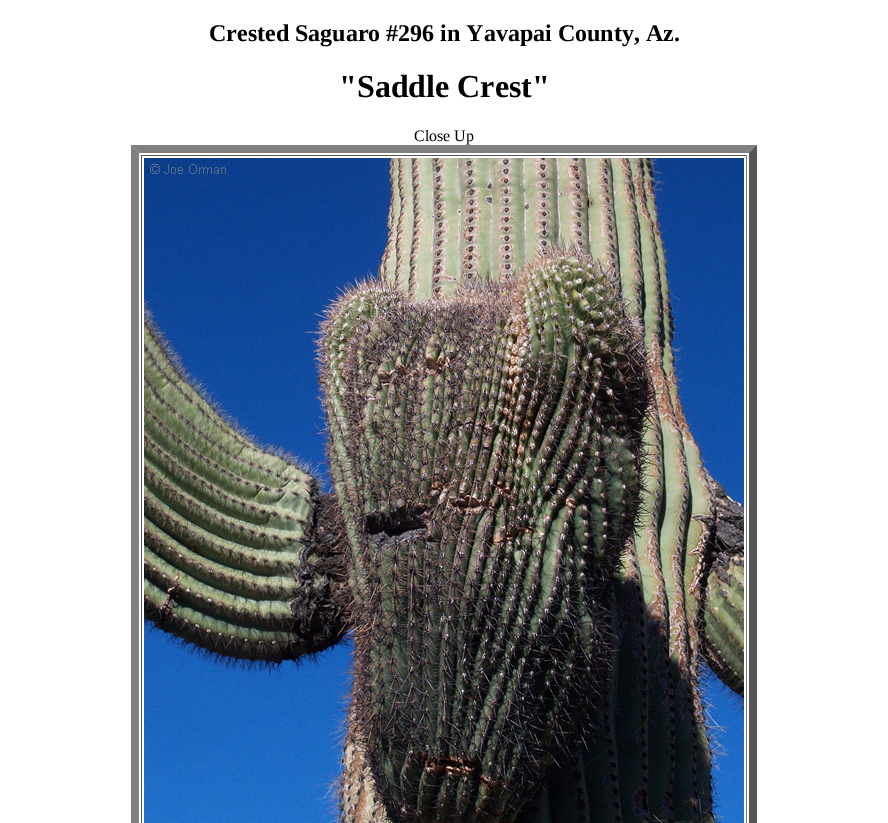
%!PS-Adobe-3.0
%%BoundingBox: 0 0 888 823
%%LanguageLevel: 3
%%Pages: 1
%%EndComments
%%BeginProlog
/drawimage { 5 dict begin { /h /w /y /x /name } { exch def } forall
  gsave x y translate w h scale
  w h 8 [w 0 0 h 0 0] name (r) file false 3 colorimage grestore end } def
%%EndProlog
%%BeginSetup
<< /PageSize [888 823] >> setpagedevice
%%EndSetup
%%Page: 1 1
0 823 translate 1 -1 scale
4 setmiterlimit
1 setgray
0 0 888 823 rectfill
0.502 setgray
newpath 131 145 moveto 757 145 lineto 749 153 lineto 139 153 lineto closepath fill
0.333 setgray
newpath 757 145 moveto 757 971 lineto 749 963 lineto 749 153 lineto closepath fill
0.502 setgray
newpath 131 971 moveto 131 145 lineto 139 153 lineto 139 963 lineto closepath fill
0.333 setgray
141 155 606 1 rectfill
0.502 setgray
746 155 1 668 rectfill
0.333 setgray
141 155 1 668 rectfill
(images/1.raw) 144 158 600 665 drawimage
/LiberationSerif-Bold [24 0 0 -24 0 0] selectfont
0 setgray
209 41 moveto (Crested Saguaro #296 in Yavapai County, Az.) show
/LiberationSerif-Bold [32 0 0 -32 0 0] selectfont
339 97 moveto ("Saddle Crest") show
/LiberationSerif-Regular [16 0 0 -16 0 0] selectfont
414 141 moveto (Close Up) show
showpage
%%EOF
